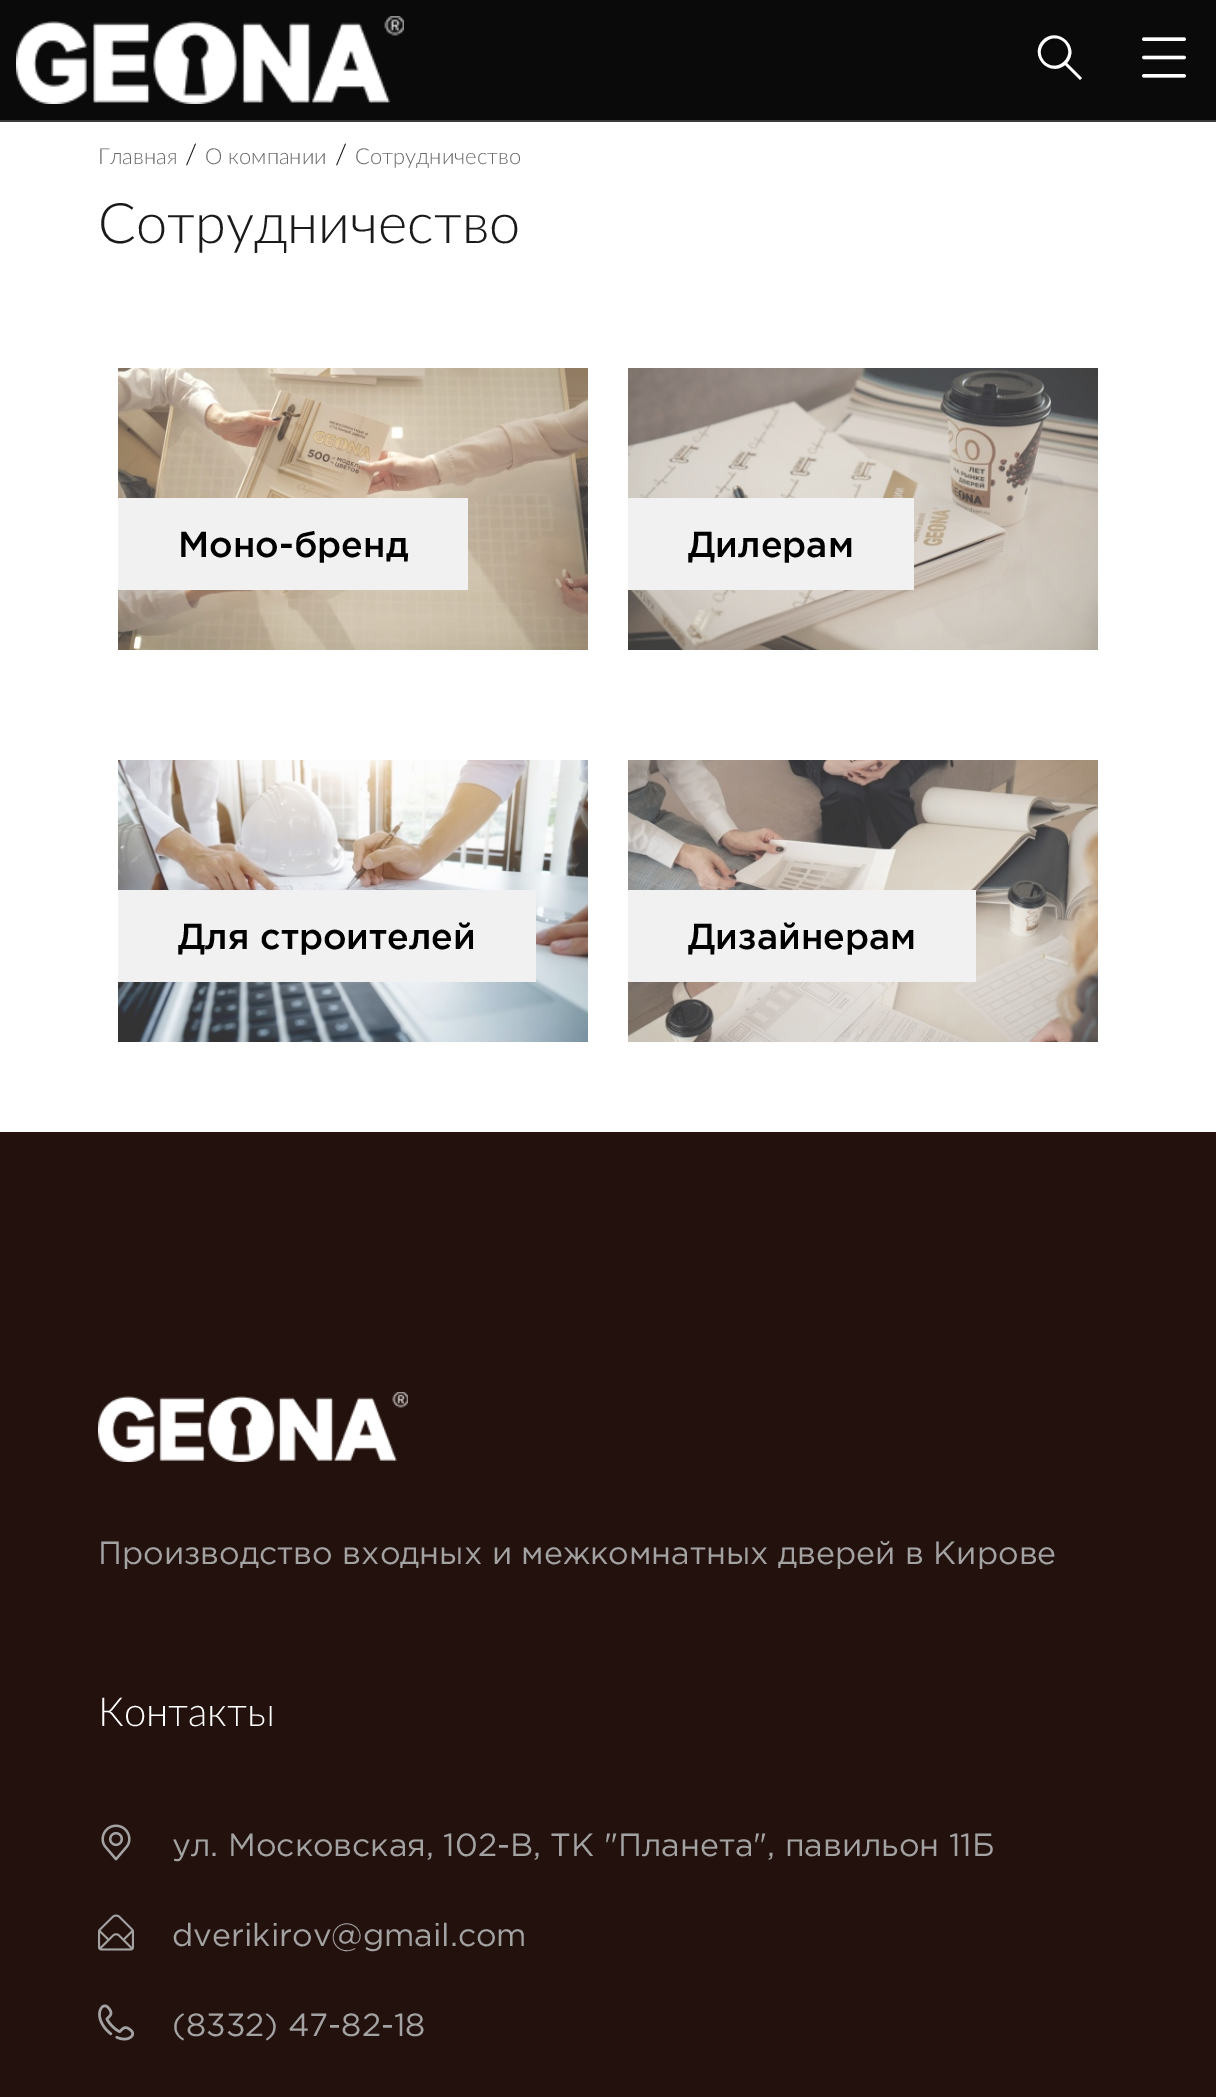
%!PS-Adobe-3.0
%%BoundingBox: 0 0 1216 2097
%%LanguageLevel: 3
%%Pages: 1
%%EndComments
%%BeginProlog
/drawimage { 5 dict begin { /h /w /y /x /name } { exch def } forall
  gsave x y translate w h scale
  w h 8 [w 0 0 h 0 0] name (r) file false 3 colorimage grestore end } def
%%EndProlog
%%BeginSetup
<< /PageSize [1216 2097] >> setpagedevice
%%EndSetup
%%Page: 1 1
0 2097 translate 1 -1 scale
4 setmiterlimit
1 setgray
0 0 1216 2097 rectfill
0.039 setgray
0 0 1216 120 rectfill
0.231 setgray
0 120 1216 2 rectfill
(images/1.raw) 16 16 388 88 drawimage
1 setgray
newpath 1082 78 moveto 1080 80 lineto 1065 65 lineto 1049 78 1028 55 1043 40 curveto 1058 26 1081 47 1067 63 curveto closepath 1045 62 moveto 1058 74 1077 55 1064 42 curveto 1051 30 1032 49 1045 62 curveto closepath fill
(images/2.raw) 1142 37 44 41 drawimage
(images/3.raw) 118 368 470 282 drawimage
0.945 setgray
118 498 350 92 rectfill
(images/4.raw) 628 368 470 282 drawimage
628 498 286 92 rectfill
(images/5.raw) 118 760 470 282 drawimage
118 890 418 92 rectfill
(images/6.raw) 628 760 470 282 drawimage
628 890 348 92 rectfill
0.137 0.067 0.051 setrgbcolor
0 1132 1216 965 rectfill
(images/7.raw) 98 1392 310 70 drawimage
(images/8.raw) 101 1824 30 37 drawimage
(images/9.raw) 98 1914 36 37 drawimage
(images/10.raw) 98 2004 37 37 drawimage
/Lato-Light [22 0 0 -22 0 0] selectfont
0.416 setgray
98 164 moveto (Главная) show
/Lato-Light [28 0 0 -28 0 0] selectfont
0.067 setgray
185 164 moveto (/) show
/Lato-Light [22 0 0 -22 0 0] selectfont
0.416 setgray
205 164 moveto (О компании) show
/Lato-Light [28 0 0 -28 0 0] selectfont
0.067 setgray
335 164 moveto (/) show
/Lato-Light [22 0 0 -22 0 0] selectfont
0.416 setgray
355 164 moveto (Сотрудничество) show
/Lato-Light [56 0 0 -56 0 0] selectfont
0.102 setgray
98 243 moveto (Сотрудничество) show
/Gotham-Medium [36 0 0 -36 0 0] selectfont
0 setgray
178 557 moveto (Моно-бренд) show
688 557 moveto (Дилерам) show
178 949 moveto (Для строителей) show
688 949 moveto (Дизайнерам) show
/Gotham-Regular [32 0 0 -32 0 0] selectfont
0.639 setgray
98 1564 moveto (Производство входных и межкомнатных дверей в Кирове) show
/Lato-Light [40 0 0 -40 0 0] selectfont
1 setgray
98 1726 moveto (Контакты) show
/Gotham-Regular [32 0 0 -32 0 0] selectfont
0.639 setgray
172 1856 moveto (ул. Московская, 102-В, ТК "Планета", павильон 11Б) show
172 1946 moveto (dverikirov@gmail.com) show
172 2036 moveto (\(8332\) 47-82-18) show
showpage
%%EOF
